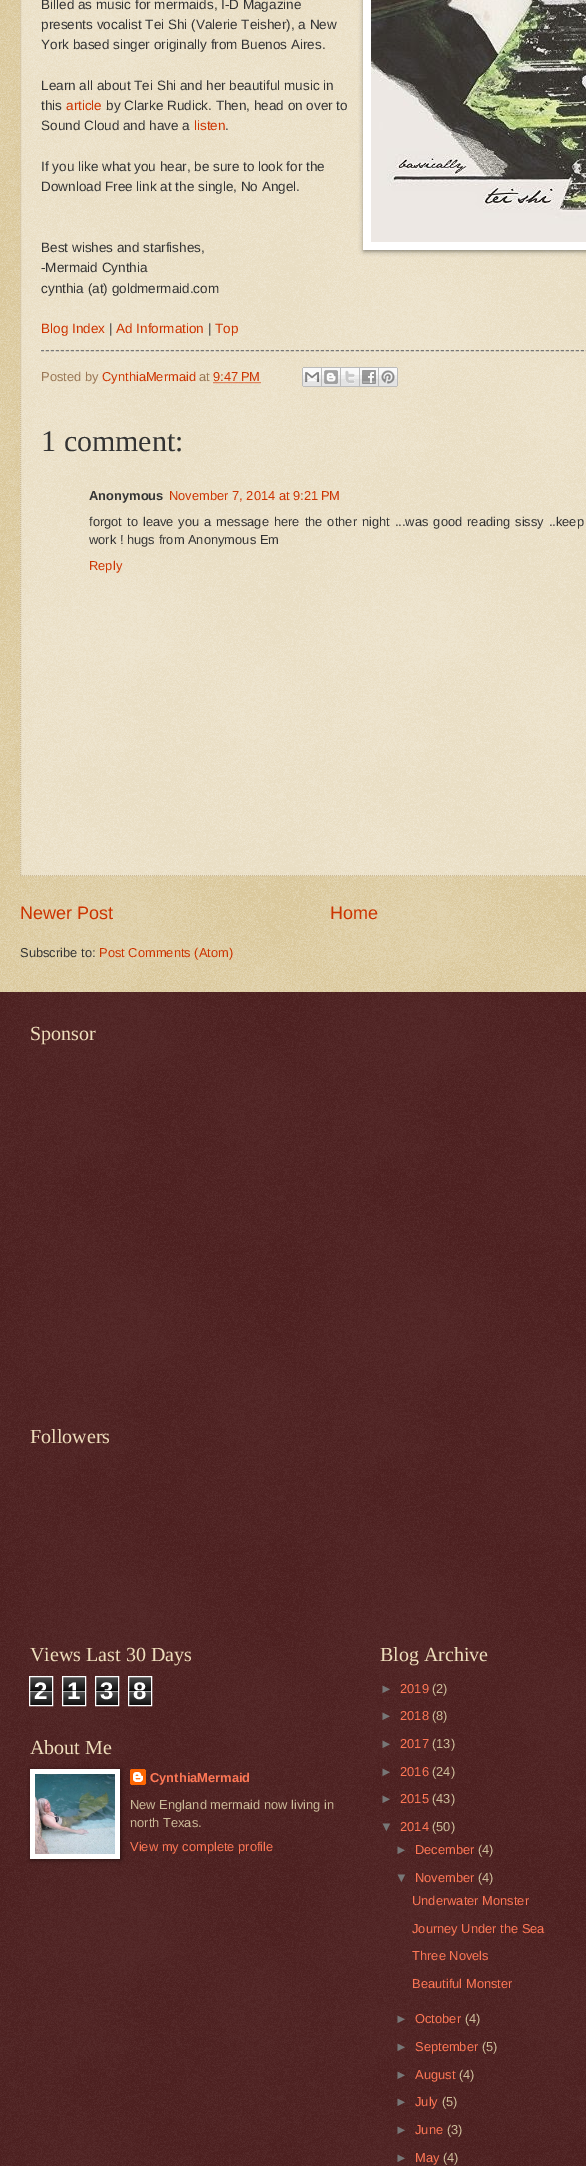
%!PS-Adobe-3.0
%%BoundingBox: 0 0 586 2166
%%LanguageLevel: 3
%%Pages: 1
%%EndComments
%%BeginProlog
/setalpha { dup .setfillconstantalpha .setstrokeconstantalpha } def
/rrect { 5 dict begin { /r /h /w /y /x } { exch def } forall
  x r add y moveto x w add y 2 copy h add r arct x w add y h add x 1 index r arct
  x y h add x y r arct x y 2 copy exch w add exch r arct closepath end } def
/softshadow { 12 dict begin { /a /b /q /h /w /y /x } { exch def } forall gsave /was 0 def
  9 -2 -9 { dup b mul 4 div /e exch def 1 sub .425 mul 2.718 exch exp 1 add a .99 .min exch div /now exch def
    1 1 now sub 1 was sub div sub setalpha /was now def
    w h .min e 2 mul add 0 gt { x e sub y e sub w e 2 mul add h e 2 mul add
      q e add b .6 mul add w h .min 2 div e add .min 0 .max rrect fill } if } for grestore end } def
/drawimage { 5 dict begin { /h /w /y /x /name } { exch def } forall
  gsave x y translate w h scale
  w h 8 [w 0 0 h 0 0] name (r) file false 3 colorimage grestore end } def
%%EndProlog
%%BeginSetup
<< /PageSize [586 2166] /PageUsesTransparency true >> setpagedevice
%%EndSetup
%%Page: 1 1
0 .pushpdf14devicefilter
0 2166 translate 1 -1 scale
4 setmiterlimit
0.753 0.631 0.329 setrgbcolor
0 0 586 2166 rectfill
(images/1.raw) 0 0 586 992 drawimage
0.4 setalpha
1 setgray
20 0 566 876 rectfill
1 setalpha
0.8 0.733 0.6 setrgbcolor
[1 1] 0 setdash
newpath 20 875.5 moveto 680 875.5 lineto stroke
newpath 20.5 -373 moveto 20.5 876 lineto stroke
0 setgray
364 -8 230 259 0 2.5 0.5 softshadow
1 setgray
363 0 223 250 rectfill
(images/2.raw) 371 0 215 242 drawimage
0.467 setgray
[3 2] 0 setdash
newpath 41 350.5 moveto 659 350.5 lineto stroke
0.8 0.2 0 setrgbcolor
[1 1] 0 setdash
newpath 213.5 382.5 moveto 260.5 382.5 lineto stroke
(images/3.raw) 302 367 20 20 drawimage
(images/4.raw) 322 367 19 20 drawimage
(images/5.raw) 341 367 19 20 drawimage
(images/6.raw) 360 367 19 20 drawimage
(images/7.raw) 379 367 19 20 drawimage
0.2 0 0 setrgbcolor
0 992 586 1174 rectfill
(images/8.raw) 0 992 586 1174 drawimage
(images/9.raw) 30 1677 22 28 drawimage
1 setgray
[] 0 setdash
29.5 1676.5 23 29 rectstroke
(images/9.raw) 63 1677 22 28 drawimage
62.5 1676.5 23 29 rectstroke
(images/9.raw) 96 1677 22 28 drawimage
95.5 1676.5 23 29 rectstroke
(images/9.raw) 129 1677 22 28 drawimage
128.5 1676.5 23 29 rectstroke
0 setgray
31 1770 90 90 0 2.5 0.5 softshadow
1 setgray
30 1769 90 90 rectfill
(images/10.raw) 35 1774 80 80 drawimage
(images/11.raw) 130 1769 16 16 drawimage
/LiberationSans-Regular [13.5 0 0 -13.5 0 0] selectfont
0.2 setgray
41 9 moveto (Billed as music for mermaids, I-D Magazine) show
41 29 moveto (presents vocalist Tei Shi \(Valerie Teisher\), a New) show
41 49 moveto (York based singer originally from Buenos Aires.) show
41 90 moveto (Learn all about Tei Shi and her beautiful music in) show
41 110 moveto (this) show
0.8 0.2 0 setrgbcolor
66 110 moveto (article) show
0.2 setgray
106 110 moveto (by Clarke Rudick. Then, head on over to) show
41 130 moveto (Sound Cloud and have a) show
0.8 0.2 0 setrgbcolor
194 130 moveto (listen) show
0.2 setgray
225 130 moveto (.) show
41 171 moveto (If you like what you hear, be sure to look for the) show
41 191 moveto (Download Free link at the single, No Angel.) show
41 252 moveto (Best wishes and starfishes,) show
41 272 moveto (-Mermaid Cynthia) show
41 293 moveto (cynthia \(at\) goldmermaid.com) show
0.8 0.2 0 setrgbcolor
41 333 moveto (Blog Index) show
0.2 setgray
109 333 moveto (|) show
0.8 0.2 0 setrgbcolor
116 333 moveto (Ad Information) show
0.2 setgray
208 333 moveto (|) show
0.8 0.2 0 setrgbcolor
215 333 moveto (Top) show
/LiberationSans-Regular [12.9 0 0 -12.9 0 0] selectfont
0.6 0.467 0.333 setrgbcolor
41 381 moveto (Posted by) show
0.8 0.2 0 setrgbcolor
102 381 moveto (CynthiaMermaid) show
0.6 0.467 0.333 setrgbcolor
199 381 moveto (at) show
0.8 0.2 0 setrgbcolor
213 381 moveto (9:47 PM) show
/LiberationSerif-Regular [30 0 0 -30 0 0] selectfont
0.2 setgray
41 451 moveto (1 comment:) show
/LiberationSans-Bold [12.9 0 0 -12.9 0 0] selectfont
89 500 moveto (Anonymous) show
/LiberationSans-Regular [12.9 0 0 -12.9 0 0] selectfont
0.8 0.2 0 setrgbcolor
169 500 moveto (November 7, 2014 at 9:21 PM) show
0.2 setgray
89 526 moveto 1.4 0 32 (forgot to leave you a message here the other night ...was good reading sissy ..keep) widthshow
89 544 moveto (work ! hugs from Anonymous Em) show
0.8 0.2 0 setrgbcolor
89 570 moveto (Reply) show
/LiberationSans-Regular [18 0 0 -18 0 0] selectfont
20 919 moveto (Newer Post) show
330 919 moveto (Home) show
/LiberationSans-Regular [12.9 0 0 -12.9 0 0] selectfont
0.2 setgray
20 957 moveto (Subscribe to:) show
0.8 0.2 0 setrgbcolor
99 957 moveto (Post Comments \(Atom\)) show
/LiberationSerif-Regular [20 0 0 -20 0 0] selectfont
0.933 0.867 0.733 setrgbcolor
30 1040 moveto (Sponsor) show
30 1443 moveto (Followers) show
30 1661 moveto (Views Last 30 Days) show
/LiberationSans-Bold [24 0 0 -24 0 0] selectfont
1 setgray
34 1699 moveto (2) show
0.65 setalpha
0 setgray
30 1690 22 1 rectfill
1 setgray
30 1691 22 1 rectfill
1 setalpha
67 1699 moveto (1) show
0.65 setalpha
0 setgray
63 1690 22 1 rectfill
1 setgray
63 1691 22 1 rectfill
1 setalpha
100 1699 moveto (3) show
0.65 setalpha
0 setgray
96 1690 22 1 rectfill
1 setgray
96 1691 22 1 rectfill
1 setalpha
133 1699 moveto (8) show
0.65 setalpha
0 setgray
129 1690 22 1 rectfill
1 setgray
129 1691 22 1 rectfill
/LiberationSerif-Regular [20 0 0 -20 0 0] selectfont
1 setalpha
0.933 0.867 0.733 setrgbcolor
30 1754 moveto (About Me) show
/LiberationSans-Bold [12.9 0 0 -12.9 0 0] selectfont
1 0.467 0.333 setrgbcolor
150 1782 moveto (CynthiaMermaid) show
/LiberationSans-Regular [12.9 0 0 -12.9 0 0] selectfont
0.8 0.733 0.6 setrgbcolor
130 1809 moveto (New England mermaid now living in) show
130 1827 moveto (north Texas.) show
1 0.467 0.333 setrgbcolor
130 1851 moveto (View my complete profile) show
/LiberationSerif-Regular [20 0 0 -20 0 0] selectfont
0.933 0.867 0.733 setrgbcolor
380 1661 moveto (Blog Archive) show
/LiberationSans-Regular [12.9 0 0 -12.9 0 0] selectfont
0.467 setgray
380 1693 moveto (►) show
1 0.467 0.333 setrgbcolor
400 1693 moveto (2019) show
0.8 0.733 0.6 setrgbcolor
432 1693 moveto (\(2\)) show
0.467 setgray
380 1720 moveto (►) show
1 0.467 0.333 setrgbcolor
400 1720 moveto (2018) show
0.8 0.733 0.6 setrgbcolor
432 1720 moveto (\(8\)) show
0.467 setgray
380 1748 moveto (►) show
1 0.467 0.333 setrgbcolor
400 1748 moveto (2017) show
0.8 0.733 0.6 setrgbcolor
432 1748 moveto (\(13\)) show
0.467 setgray
380 1776 moveto (►) show
1 0.467 0.333 setrgbcolor
400 1776 moveto (2016) show
0.8 0.733 0.6 setrgbcolor
432 1776 moveto (\(24\)) show
0.467 setgray
380 1803 moveto (►) show
1 0.467 0.333 setrgbcolor
400 1803 moveto (2015) show
0.8 0.733 0.6 setrgbcolor
432 1803 moveto (\(43\)) show
0.467 setgray
380 1831 moveto (▼) show
1 0.467 0.333 setrgbcolor
400 1831 moveto (2014) show
0.8 0.733 0.6 setrgbcolor
432 1831 moveto (\(50\)) show
0.467 setgray
395 1854 moveto (►) show
1 0.467 0.333 setrgbcolor
415 1854 moveto (December) show
0.8 0.733 0.6 setrgbcolor
478 1854 moveto (\(4\)) show
0.467 setgray
395 1882 moveto (▼) show
1 0.467 0.333 setrgbcolor
415 1882 moveto (November) show
0.8 0.733 0.6 setrgbcolor
478 1882 moveto (\(4\)) show
1 0.467 0.333 setrgbcolor
412 1905 moveto (Underwater Monster) show
412 1933 moveto (Journey Under the Sea) show
412 1960 moveto (Three Novels) show
412 1988 moveto (Beautiful Monster) show
0.467 setgray
395 2023 moveto (►) show
1 0.467 0.333 setrgbcolor
415 2023 moveto (October) show
0.8 0.733 0.6 setrgbcolor
465 2023 moveto (\(4\)) show
0.467 setgray
395 2051 moveto (►) show
1 0.467 0.333 setrgbcolor
415 2051 moveto (September) show
0.8 0.733 0.6 setrgbcolor
482 2051 moveto (\(5\)) show
0.467 setgray
395 2079 moveto (►) show
1 0.467 0.333 setrgbcolor
415 2079 moveto (August) show
0.8 0.733 0.6 setrgbcolor
459 2079 moveto (\(4\)) show
0.467 setgray
395 2106 moveto (►) show
1 0.467 0.333 setrgbcolor
415 2106 moveto (July) show
0.8 0.733 0.6 setrgbcolor
442 2106 moveto (\(5\)) show
0.467 setgray
395 2134 moveto (►) show
1 0.467 0.333 setrgbcolor
415 2134 moveto (June) show
0.8 0.733 0.6 setrgbcolor
447 2134 moveto (\(3\)) show
0.467 setgray
395 2162 moveto (►) show
1 0.467 0.333 setrgbcolor
415 2162 moveto (May) show
0.8 0.733 0.6 setrgbcolor
443 2162 moveto (\(4\)) show
.poppdf14devicefilter showpage
%%EOF
